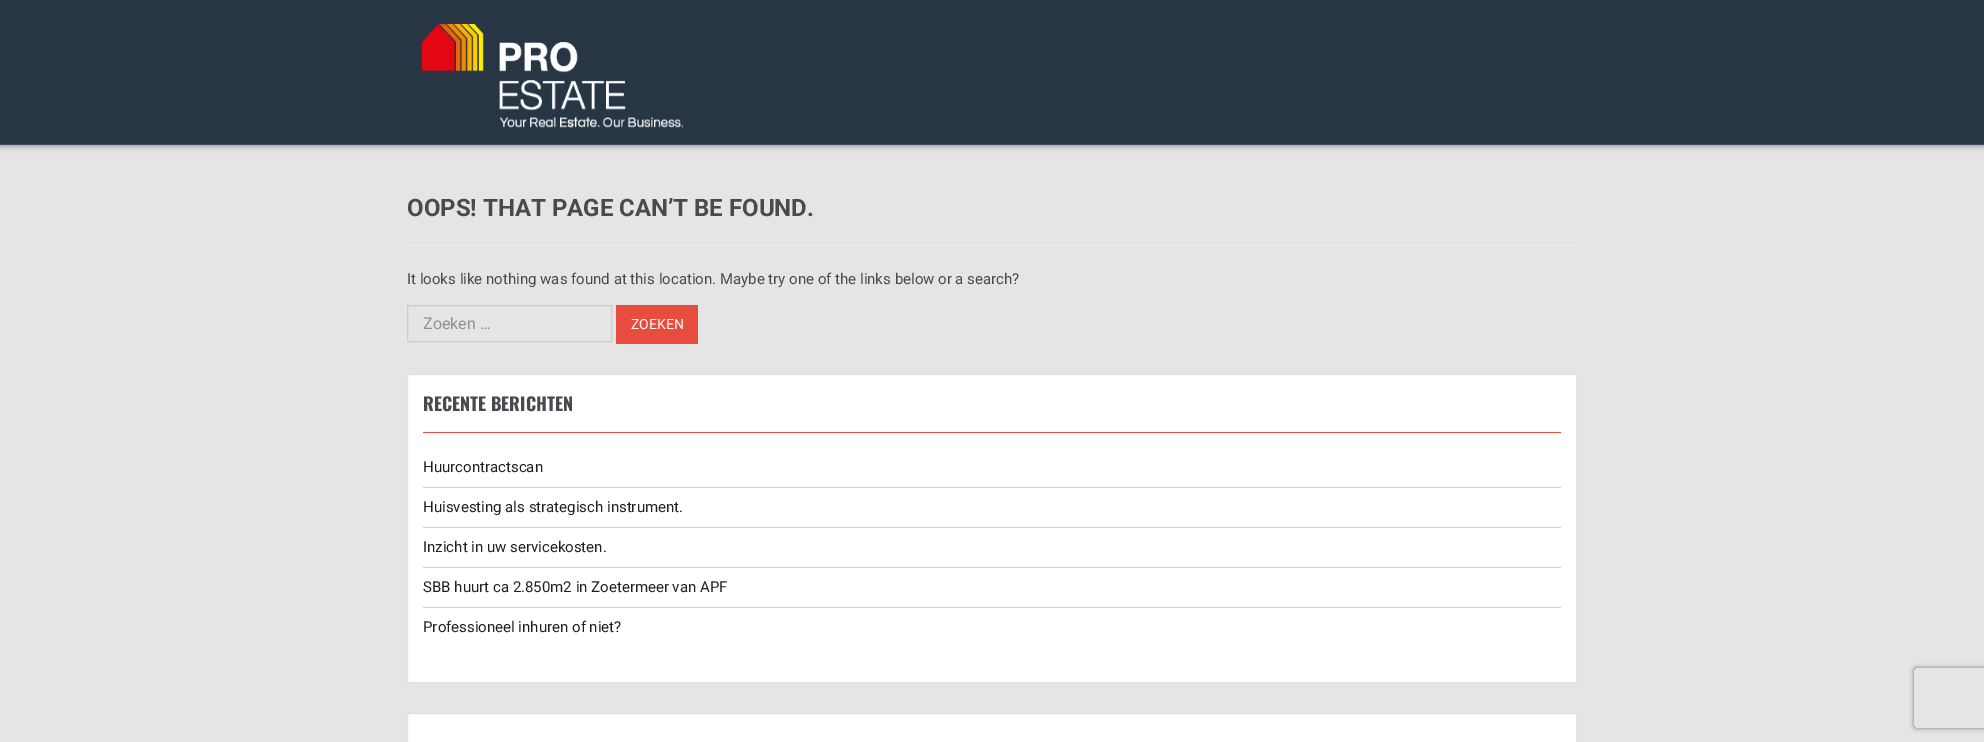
%!PS-Adobe-3.0
%%BoundingBox: 0 0 1984 742
%%LanguageLevel: 3
%%Pages: 1
%%EndComments
%%BeginProlog
/setalpha { dup .setfillconstantalpha .setstrokeconstantalpha } def
/rrect { 5 dict begin { /r /h /w /y /x } { exch def } forall
  x r add y moveto x w add y 2 copy h add r arct x w add y h add x 1 index r arct
  x y h add x y r arct x y 2 copy exch w add exch r arct closepath end } def
/softshadow { 12 dict begin { /a /b /q /h /w /y /x } { exch def } forall gsave /was 0 def
  9 -2 -9 { dup b mul 4 div /e exch def 1 sub .425 mul 2.718 exch exp 1 add a .99 .min exch div /now exch def
    1 1 now sub 1 was sub div sub setalpha /was now def
    w h .min e 2 mul add 0 gt { x e sub y e sub w e 2 mul add h e 2 mul add
      q e add b .6 mul add w h .min 2 div e add .min 0 .max rrect fill } if } for grestore end } def
/drawimage { 5 dict begin { /h /w /y /x /name } { exch def } forall
  gsave x y translate w h scale
  w h 8 [w 0 0 h 0 0] name (r) file false 3 colorimage grestore end } def
%%EndProlog
%%BeginSetup
<< /PageSize [1984 742] /PageUsesTransparency true >> setpagedevice
%%EndSetup
%%Page: 1 1
0 .pushpdf14devicefilter
0 742 translate 1 -1 scale
4 setmiterlimit
0.898 setgray
0 0 1984 742 rectfill
0 setgray
0 1 1984 145 0 3 0.4 softshadow
0.153 0.208 0.267 setrgbcolor
0 0 1984 144 rectfill
0.239 0.306 0.384 setrgbcolor
0 144 1984 1 rectfill
(images/1.raw) 422 24 262 104 drawimage
0.933 setgray
407 245 1170 1 rectfill
0.8 setgray
407.5 305.5 204 36 rectstroke
0.906 0.298 0.235 setrgbcolor
616 305 82 39 rectfill
1 setgray
newpath 407.5 374.5 moveto 1576.5 374.5 lineto 1576.5 682.5 lineto 407.5 682.5 lineto closepath gsave fill grestore
0.882 setgray
stroke
0.906 0.298 0.235 setrgbcolor
423 432 1138 1 rectfill
0.8 setgray
423 487 1138 1 rectfill
423 527 1138 1 rectfill
423 567 1138 1 rectfill
423 607 1138 1 rectfill
1 setgray
newpath 407.5 713.5 moveto 1576.5 713.5 lineto 1576.5 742.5 lineto 407.5 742.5 lineto closepath gsave fill grestore
0.882 setgray
stroke
gsave
newpath 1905 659 moveto 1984 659 lineto 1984 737 lineto 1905 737 lineto closepath 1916 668 moveto 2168 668 lineto 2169 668 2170 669 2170 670 curveto 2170 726 lineto 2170 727 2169 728 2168 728 curveto 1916 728 lineto 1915 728 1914 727 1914 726 curveto 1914 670 lineto 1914 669 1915 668 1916 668 curveto closepath eoclip newpath
0.502 setgray
1914 668 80 60 2 2.5 1 softshadow
grestore
/Roboto-Bold [24 0 0 -24 0 0] selectfont
0.294 0.286 0.31 setrgbcolor
407 216 moveto (OOPS! THAT PAGE CAN’T BE FOUND.) show
/Roboto-Regular [15 0 0 -15 0 0] selectfont
407 284 moveto (It looks like nothing was found at this location. Maybe try one of the links below or a search?) show
/Roboto-Regular [16 0 0 -16 0 0] selectfont
0.569 setgray
423 329 moveto (Zoeken …) show
/Roboto-Regular [14 0 0 -14 0 0] selectfont
1 setgray
631 329 moveto (ZOEKEN) show
/Oswald-Bold [18 0 0 -18 0 0] selectfont
0.294 0.286 0.31 setrgbcolor
423 411 moveto (RECENTE BERICHTEN) show
/Roboto-Regular [15 0 0 -15 0 0] selectfont
0.129 setgray
423 472 moveto (Huurcontractscan) show
423 512 moveto (Huisvesting als strategisch instrument.) show
423 552 moveto (Inzicht in uw servicekosten.) show
423 592 moveto (SBB huurt ca 2.850m2 in Zoetermeer van APF) show
423 632 moveto (Professioneel inhuren of niet?) show
.poppdf14devicefilter showpage
%%EOF
